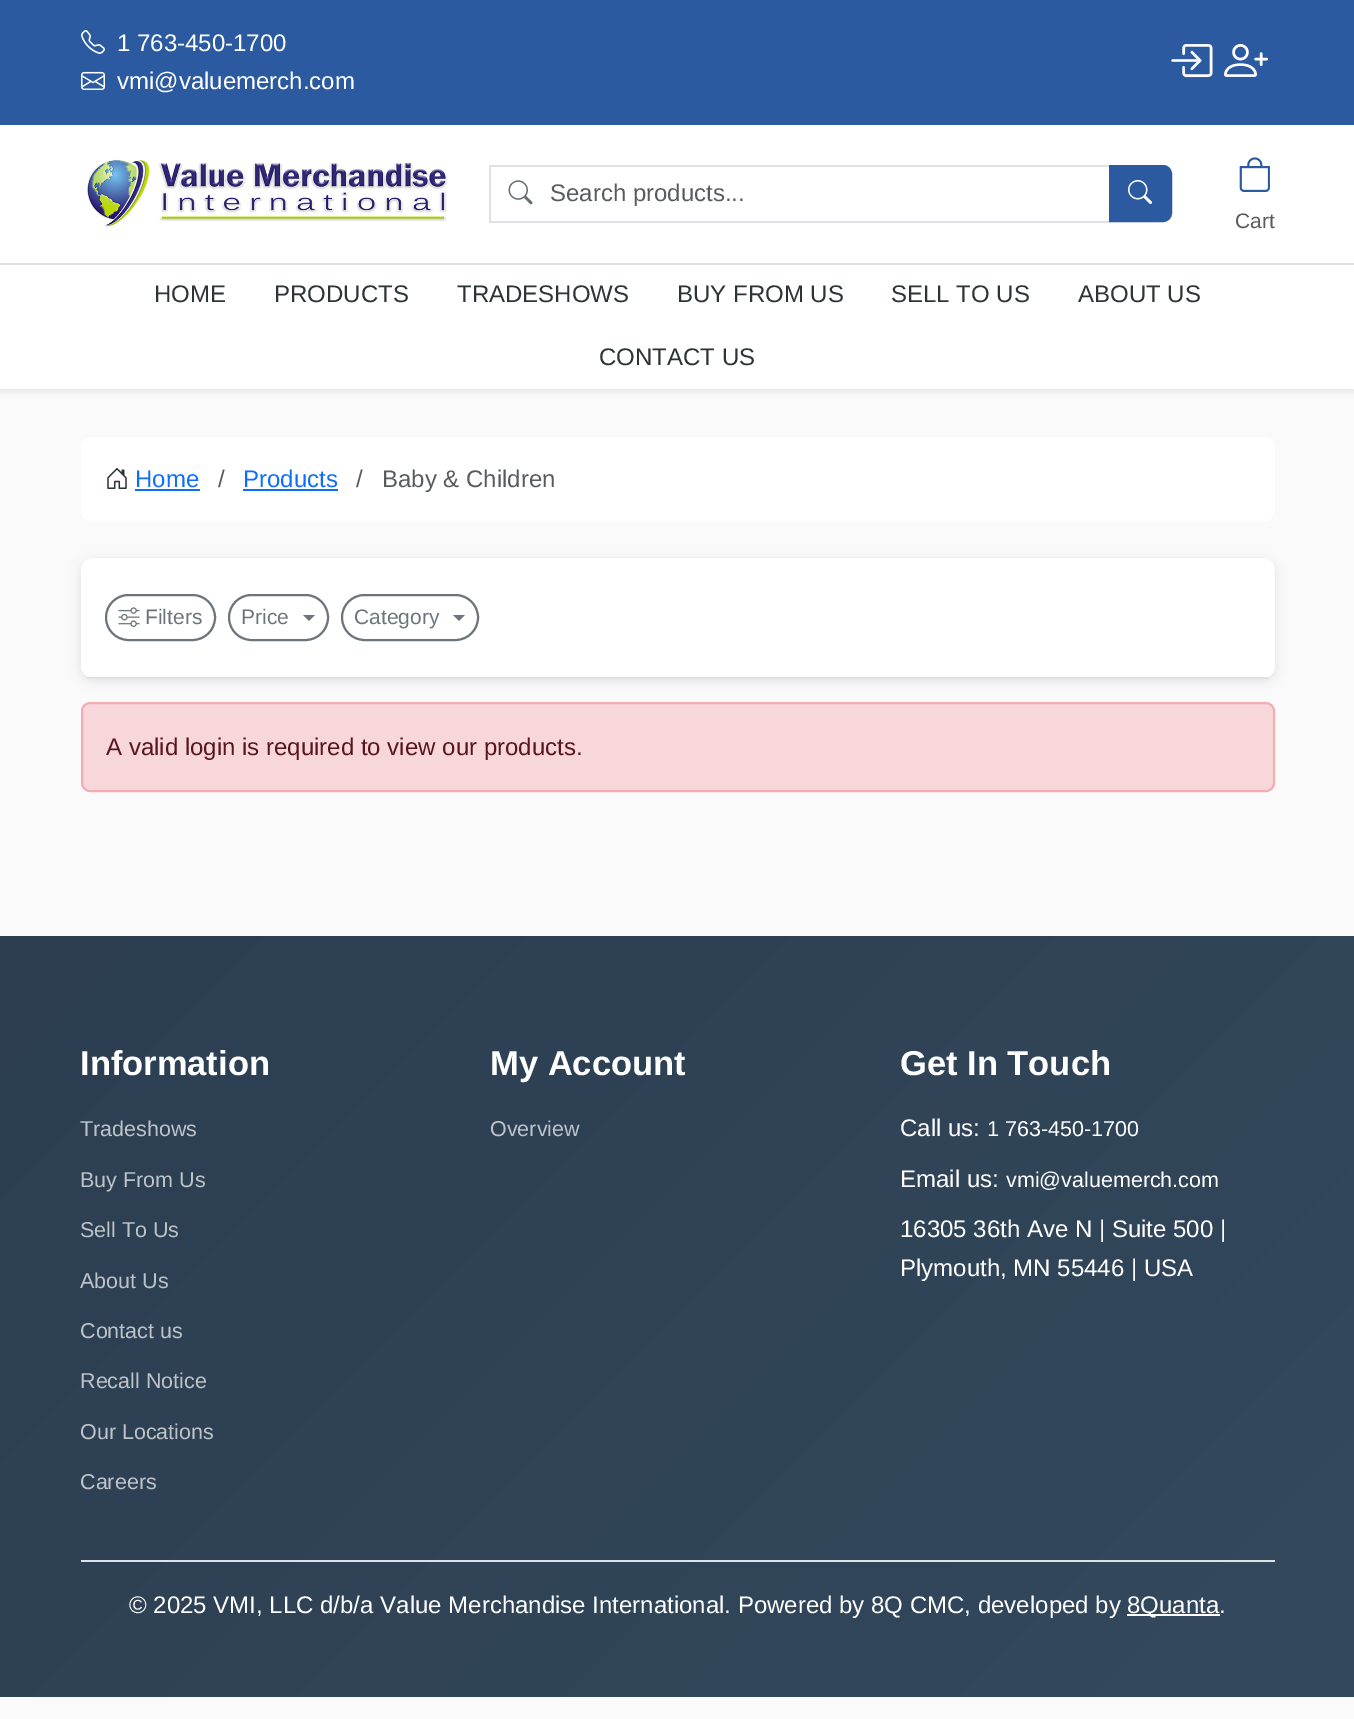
%!PS-Adobe-3.0
%%BoundingBox: 0 0 1354 1719
%%LanguageLevel: 3
%%Pages: 1
%%EndComments
%%BeginProlog
/setalpha { dup .setfillconstantalpha .setstrokeconstantalpha } def
/rrect { 5 dict begin { /r /h /w /y /x } { exch def } forall
  x r add y moveto x w add y 2 copy h add r arct x w add y h add x 1 index r arct
  x y h add x y r arct x y 2 copy exch w add exch r arct closepath end } def
/softshadow { 12 dict begin { /a /b /q /h /w /y /x } { exch def } forall gsave /was 0 def
  9 -2 -9 { dup b mul 4 div /e exch def 1 sub .425 mul 2.718 exch exp 1 add a .99 .min exch div /now exch def
    1 1 now sub 1 was sub div sub setalpha /was now def
    w h .min e 2 mul add 0 gt { x e sub y e sub w e 2 mul add h e 2 mul add
      q e add b .6 mul add w h .min 2 div e add .min 0 .max rrect fill } if } for grestore end } def
/drawimage { 5 dict begin { /h /w /y /x /name } { exch def } forall
  gsave x y translate w h scale
  w h 8 [w 0 0 h 0 0] name (r) file false 3 colorimage grestore end } def
%%EndProlog
%%BeginSetup
<< /PageSize [1354 1719] /PageUsesTransparency true >> setpagedevice
%%EndSetup
%%Page: 1 1
0 .pushpdf14devicefilter
0 1719 translate 1 -1 scale
4 setmiterlimit
0.98 setgray
0 0 1354 1719 rectfill
0 setgray
0 3 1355 389 0 3 0.07 softshadow
1 setgray
0 125 1354 264 rectfill
0.173 0.353 0.627 setrgbcolor
0 0 1354 125 rectfill
(images/1.raw) 81 30 24 24 drawimage
(images/2.raw) 81 71 24 19 drawimage
(images/3.raw) 1171 44 42 34 drawimage
(images/4.raw) 1224 44 44 33 drawimage
(images/5.raw) 87 159 361 68 drawimage
(images/6.raw) 508 180 25 25 drawimage
0.871 0.886 0.902 setrgbcolor
489 165 621 2 rectfill
489 221 621 2 rectfill
489 165 2 57 rectfill
0.173 0.353 0.627 setrgbcolor
newpath 1110 166 moveto 1163 166 lineto 1167.5 166 1171 169.5 1171 174 curveto 1171 213 lineto 1171 217.5 1167.5 221 1163 221 curveto 1110 221 lineto closepath gsave fill grestore
2 setlinewidth
stroke
(images/7.raw) 1128 180 24 24 drawimage
(images/8.raw) 1239 157 31 35 drawimage
0.871 0.886 0.902 setrgbcolor
0 263 1354 2 rectfill
1 setgray
81 437 1194 85 12 rrect fill
(images/9.raw) 107 468 20 21 drawimage
0.051 0.431 0.992 setrgbcolor
135 489 65 2 rectfill
243 489 95 2 rectfill
0 setgray
81 561 1194 120 12 6 0.1 softshadow
1 setgray
81 558 1194 120 12 rrect fill
0.871 0.886 0.902 setrgbcolor
87 677 1182 2 rectfill
0.424 0.459 0.49 setrgbcolor
106 595 109 45 22.5 rrect stroke
(images/10.raw) 118 607 22 20 drawimage
229 595 99 45 22.5 rrect stroke
newpath 303 615 moveto 315 615 lineto 309 621 lineto closepath fill
342 595 136 45 22.5 rrect stroke
newpath 453 615 moveto 465 615 lineto 459 621 lineto closepath fill
0.973 0.843 0.855 setrgbcolor
82 703 1192 88 8 rrect gsave fill grestore
0.945 0.682 0.71 setrgbcolor
stroke
gsave newpath 0 936 moveto 1354 936 lineto 1354 1697 lineto 0 1697 lineto closepath clip newpath
<< /ShadingType 2 /ColorSpace /DeviceRGB /Coords [148 788 1206 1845] /Extend [true true] /Function << /FunctionType 2 /Domain [0 1] /C0 [0.173 0.243 0.314] /C1 [0.204 0.286 0.369] /N 1 >> >> shfill grestore
0.871 0.886 0.902 setrgbcolor
81 1560 1194 2 rectfill
1 setgray
1127 1614 93 2 rectfill
/LiberationSans-Regular [24 0 0 -24 0 0] selectfont
117 51 moveto (1 763-450-1700) show
117 89 moveto (vmi@valuemerch.com) show
0.349 0.361 0.373 setrgbcolor
550 201 moveto (Search products...) show
/LiberationSans-Regular [21 0 0 -21 0 0] selectfont
1235 228 moveto (Cart) show
/LiberationSans-Regular [24 0 0 -24 0 0] selectfont
0.176 0.204 0.212 setrgbcolor
154 302 moveto (HOME) show
274 302 moveto (PRODUCTS) show
457 302 moveto (TRADESHOWS) show
677 302 moveto (BUY FROM US) show
891 302 moveto (SELL TO US) show
1078 302 moveto (ABOUT US) show
599 365 moveto (CONTACT US) show
0.051 0.431 0.992 setrgbcolor
135 487 moveto (Home) show
0.349 0.361 0.373 setrgbcolor
218 487 moveto (/) show
0.051 0.431 0.992 setrgbcolor
243 487 moveto (Products) show
0.349 0.361 0.373 setrgbcolor
356 487 moveto (/) show
382 487 moveto (Baby & Children) show
/LiberationSans-Regular [21 0 0 -21 0 0] selectfont
0.424 0.459 0.49 setrgbcolor
145 624 moveto (Filters) show
241 624 moveto (Price) show
354 624 moveto (Category) show
/LiberationSans-Regular [24 0 0 -24 0 0] selectfont
0.345 0.082 0.11 setrgbcolor
106 755 moveto (A valid login is required to view our products.) show
/LiberationSans-Bold [34.5 0 0 -34.5 0 0] selectfont
1 setgray
80 1075 moveto (Information) show
/LiberationSans-Regular [21.5 0 0 -21.5 0 0] selectfont
0.741 0.765 0.78 setrgbcolor
80 1136 moveto (Tradeshows) show
80 1187 moveto (Buy From Us) show
80 1237 moveto (Sell To Us) show
80 1288 moveto (About Us) show
80 1338 moveto (Contact us) show
80 1388 moveto (Recall Notice) show
80 1439 moveto (Our Locations) show
80 1489 moveto (Careers) show
/LiberationSans-Bold [34.5 0 0 -34.5 0 0] selectfont
1 setgray
490 1075 moveto (My Account) show
/LiberationSans-Regular [21.5 0 0 -21.5 0 0] selectfont
0.741 0.765 0.78 setrgbcolor
490 1136 moveto (Overview) show
/LiberationSans-Bold [34.5 0 0 -34.5 0 0] selectfont
1 setgray
900 1075 moveto (Get In Touch) show
/LiberationSans-Regular [24 0 0 -24 0 0] selectfont
900 1136 moveto (Call us:) show
/LiberationSans-Regular [21.5 0 0 -21.5 0 0] selectfont
987 1136 moveto (1 763-450-1700) show
/LiberationSans-Regular [24 0 0 -24 0 0] selectfont
900 1187 moveto (Email us:) show
/LiberationSans-Regular [21.5 0 0 -21.5 0 0] selectfont
1006 1187 moveto (vmi@valuemerch.com) show
/LiberationSans-Regular [24 0 0 -24 0 0] selectfont
900 1237 moveto (16305 36th Ave N | Suite 500 |) show
900 1276 moveto (Plymouth, MN 55446 | USA) show
129 1613 moveto (© 2025 VMI, LLC d/b/a Value Merchandise International. Powered by 8Q CMC, developed by) show
1127 1613 moveto (8Quanta.) show
.poppdf14devicefilter showpage
%%EOF
